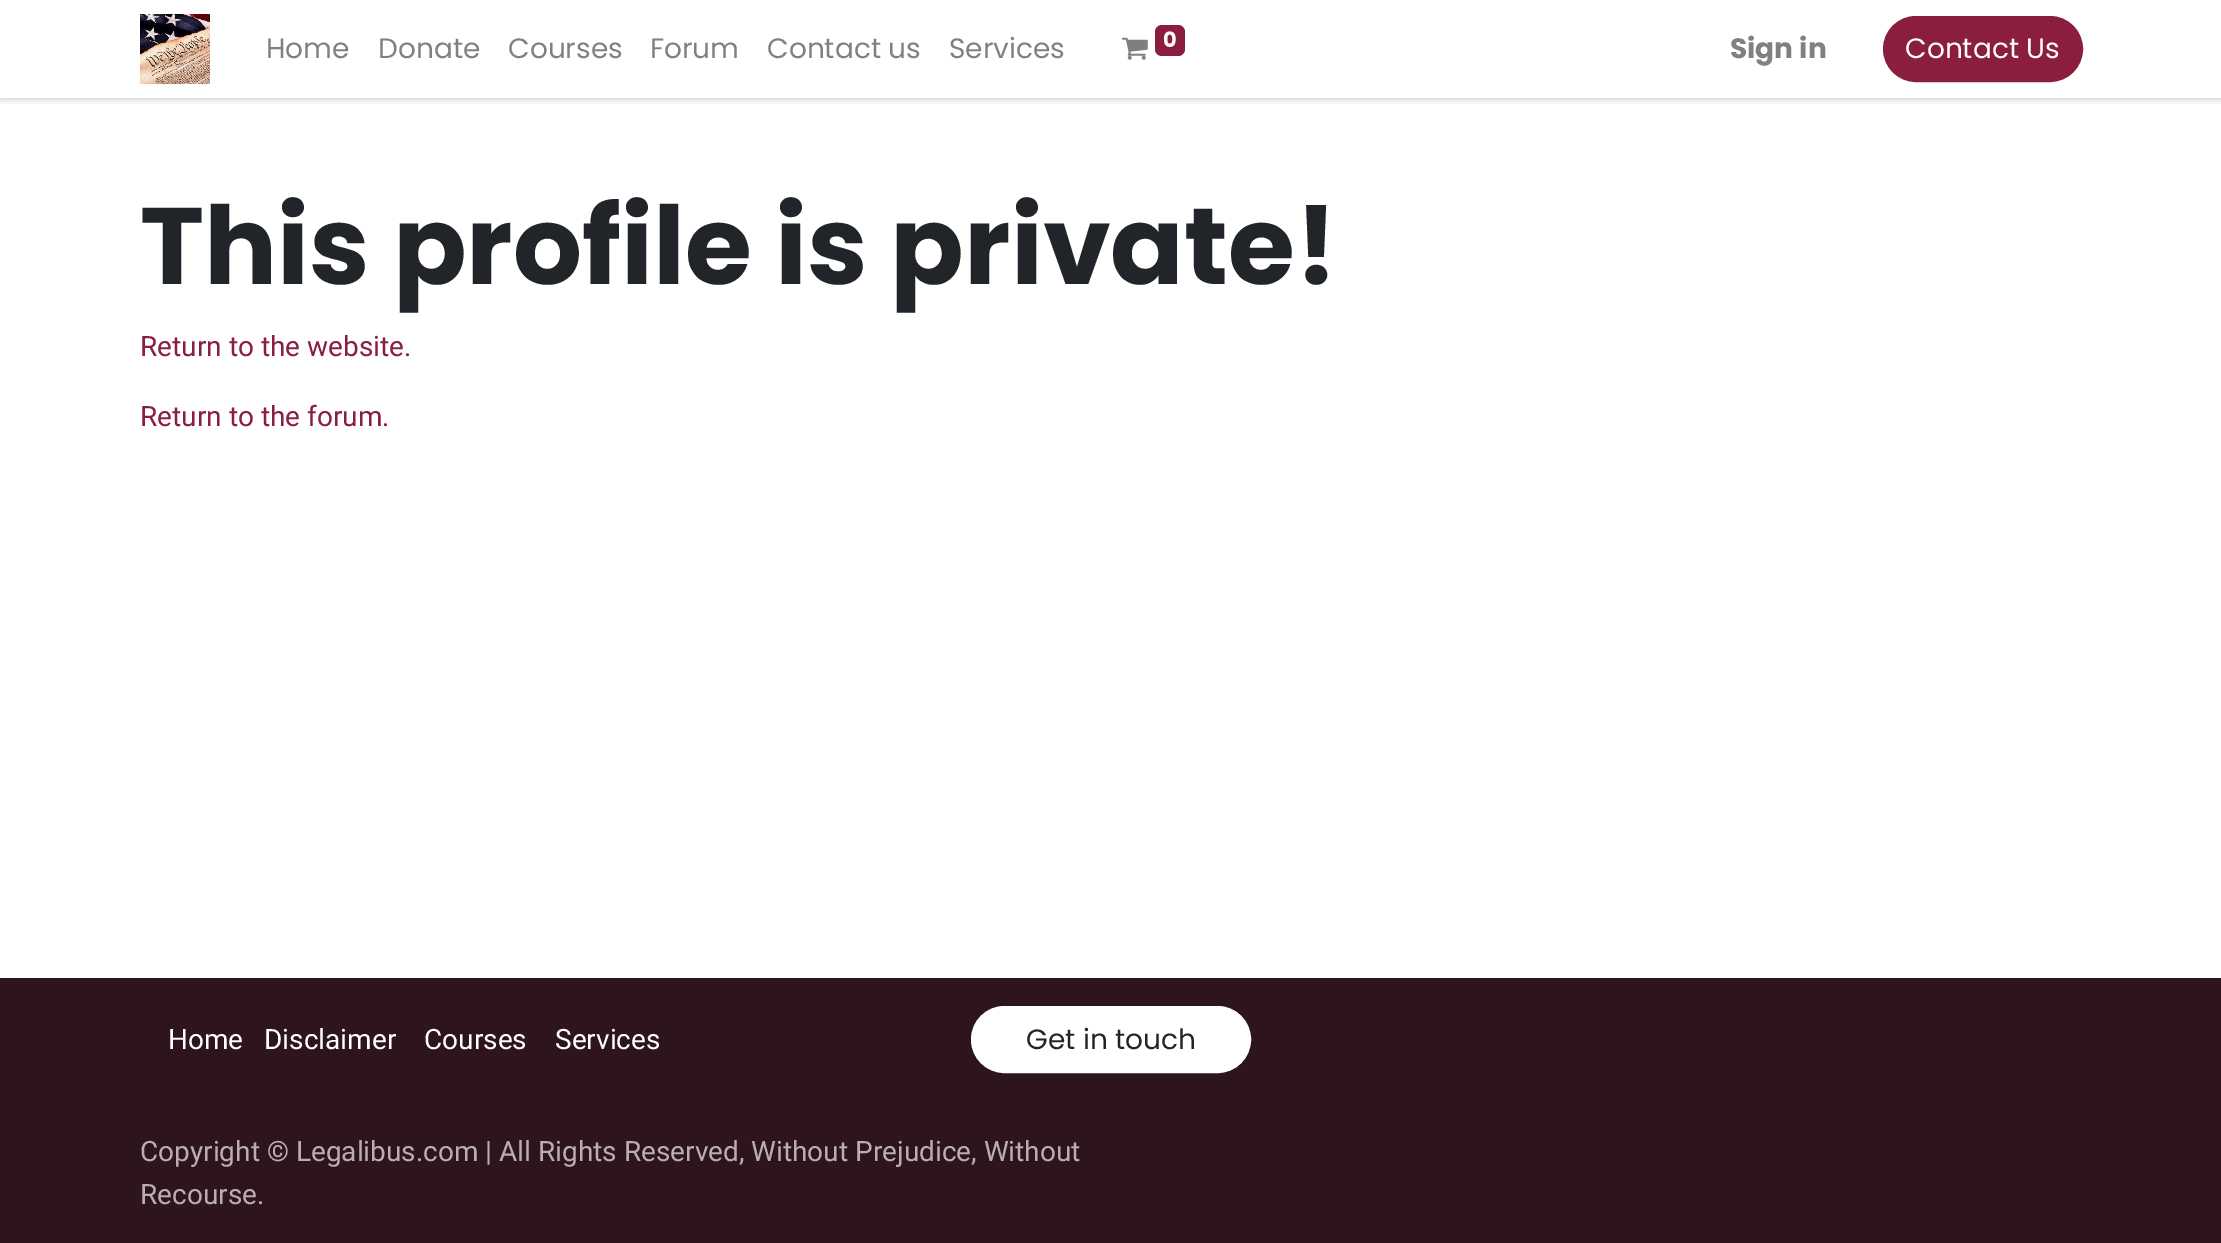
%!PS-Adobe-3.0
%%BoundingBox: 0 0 2221 1243
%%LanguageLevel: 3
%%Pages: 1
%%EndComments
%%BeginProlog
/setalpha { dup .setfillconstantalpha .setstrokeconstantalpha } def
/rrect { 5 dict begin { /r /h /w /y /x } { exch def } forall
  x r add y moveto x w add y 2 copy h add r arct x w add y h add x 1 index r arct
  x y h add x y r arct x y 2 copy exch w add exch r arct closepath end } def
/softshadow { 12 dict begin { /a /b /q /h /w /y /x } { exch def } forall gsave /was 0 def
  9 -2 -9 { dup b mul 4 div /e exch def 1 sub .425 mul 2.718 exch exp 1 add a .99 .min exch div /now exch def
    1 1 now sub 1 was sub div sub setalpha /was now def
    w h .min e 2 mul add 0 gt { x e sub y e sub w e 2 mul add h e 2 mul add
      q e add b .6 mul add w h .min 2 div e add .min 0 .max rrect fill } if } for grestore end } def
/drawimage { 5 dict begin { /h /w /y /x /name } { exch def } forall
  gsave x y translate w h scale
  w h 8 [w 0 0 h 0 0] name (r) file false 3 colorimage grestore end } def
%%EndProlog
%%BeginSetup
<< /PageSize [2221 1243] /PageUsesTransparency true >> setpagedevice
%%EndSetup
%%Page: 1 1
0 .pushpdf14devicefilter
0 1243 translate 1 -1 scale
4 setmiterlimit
1 setgray
0 0 2221 1243 rectfill
gsave
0 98 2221 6 rectclip
0 setgray
0 0 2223 98 0 4.5 0.25 softshadow
grestore
(images/1.raw) 140 14 70 70 drawimage
(images/2.raw) 1121 37 27 23 drawimage
0.545 0.118 0.247 setrgbcolor
1155 25 30 31 7 rrect fill
1884 17 198 64 32 rrect gsave fill grestore
2 setlinewidth
stroke
0.18 0.078 0.11 setrgbcolor
0 978 2221 265 rectfill
1 setgray
972 1007 278 65 32.5 rrect gsave fill grestore
stroke
/Poppins-Regular [28 0 0 -28 0 0] selectfont
0.502 setgray
266 58 moveto (Home) show
378 58 moveto (Donate) show
508 58 moveto (Courses) show
650 58 moveto (Forum) show
767 58 moveto (Contact us) show
949 58 moveto (Services) show
/Poppins-Bold [21 0 0 -21 0 0] selectfont
1 setgray
1163 47 moveto (0) show
/Poppins-Bold [28 0 0 -28 0 0] selectfont
0.502 setgray
1730 58 moveto (Sign in) show
/Poppins-Regular [28 0 0 -28 0 0] selectfont
1 setgray
1905 58 moveto (Contact Us) show
/Poppins-Bold [108.5 0 0 -108.5 0 0] selectfont
0.129 0.145 0.161 setrgbcolor
140 284 moveto (This profile is private!) show
/Roboto-Regular [28 0 0 -28 0 0] selectfont
0.545 0.118 0.247 setrgbcolor
140 356 moveto (Return to the website.) show
140 426 moveto (Return to the forum.) show
1 setgray
168 1049 moveto (Home) show
264 1049 moveto (Disclaimer) show
424 1049 moveto (Courses) show
555 1049 moveto (Services) show
/Poppins-Regular [28 0 0 -28 0 0] selectfont
0.129 0.145 0.161 setrgbcolor
1026 1049 moveto (Get in touch) show
/Roboto-Regular [28 0 0 -28 0 0] selectfont
0.725 0.682 0.698 setrgbcolor
140 1161 moveto (Copyright © Legalibus.com | All Rights Reserved, Without Prejudice, Without) show
140 1204 moveto (Recourse.) show
.poppdf14devicefilter showpage
%%EOF
